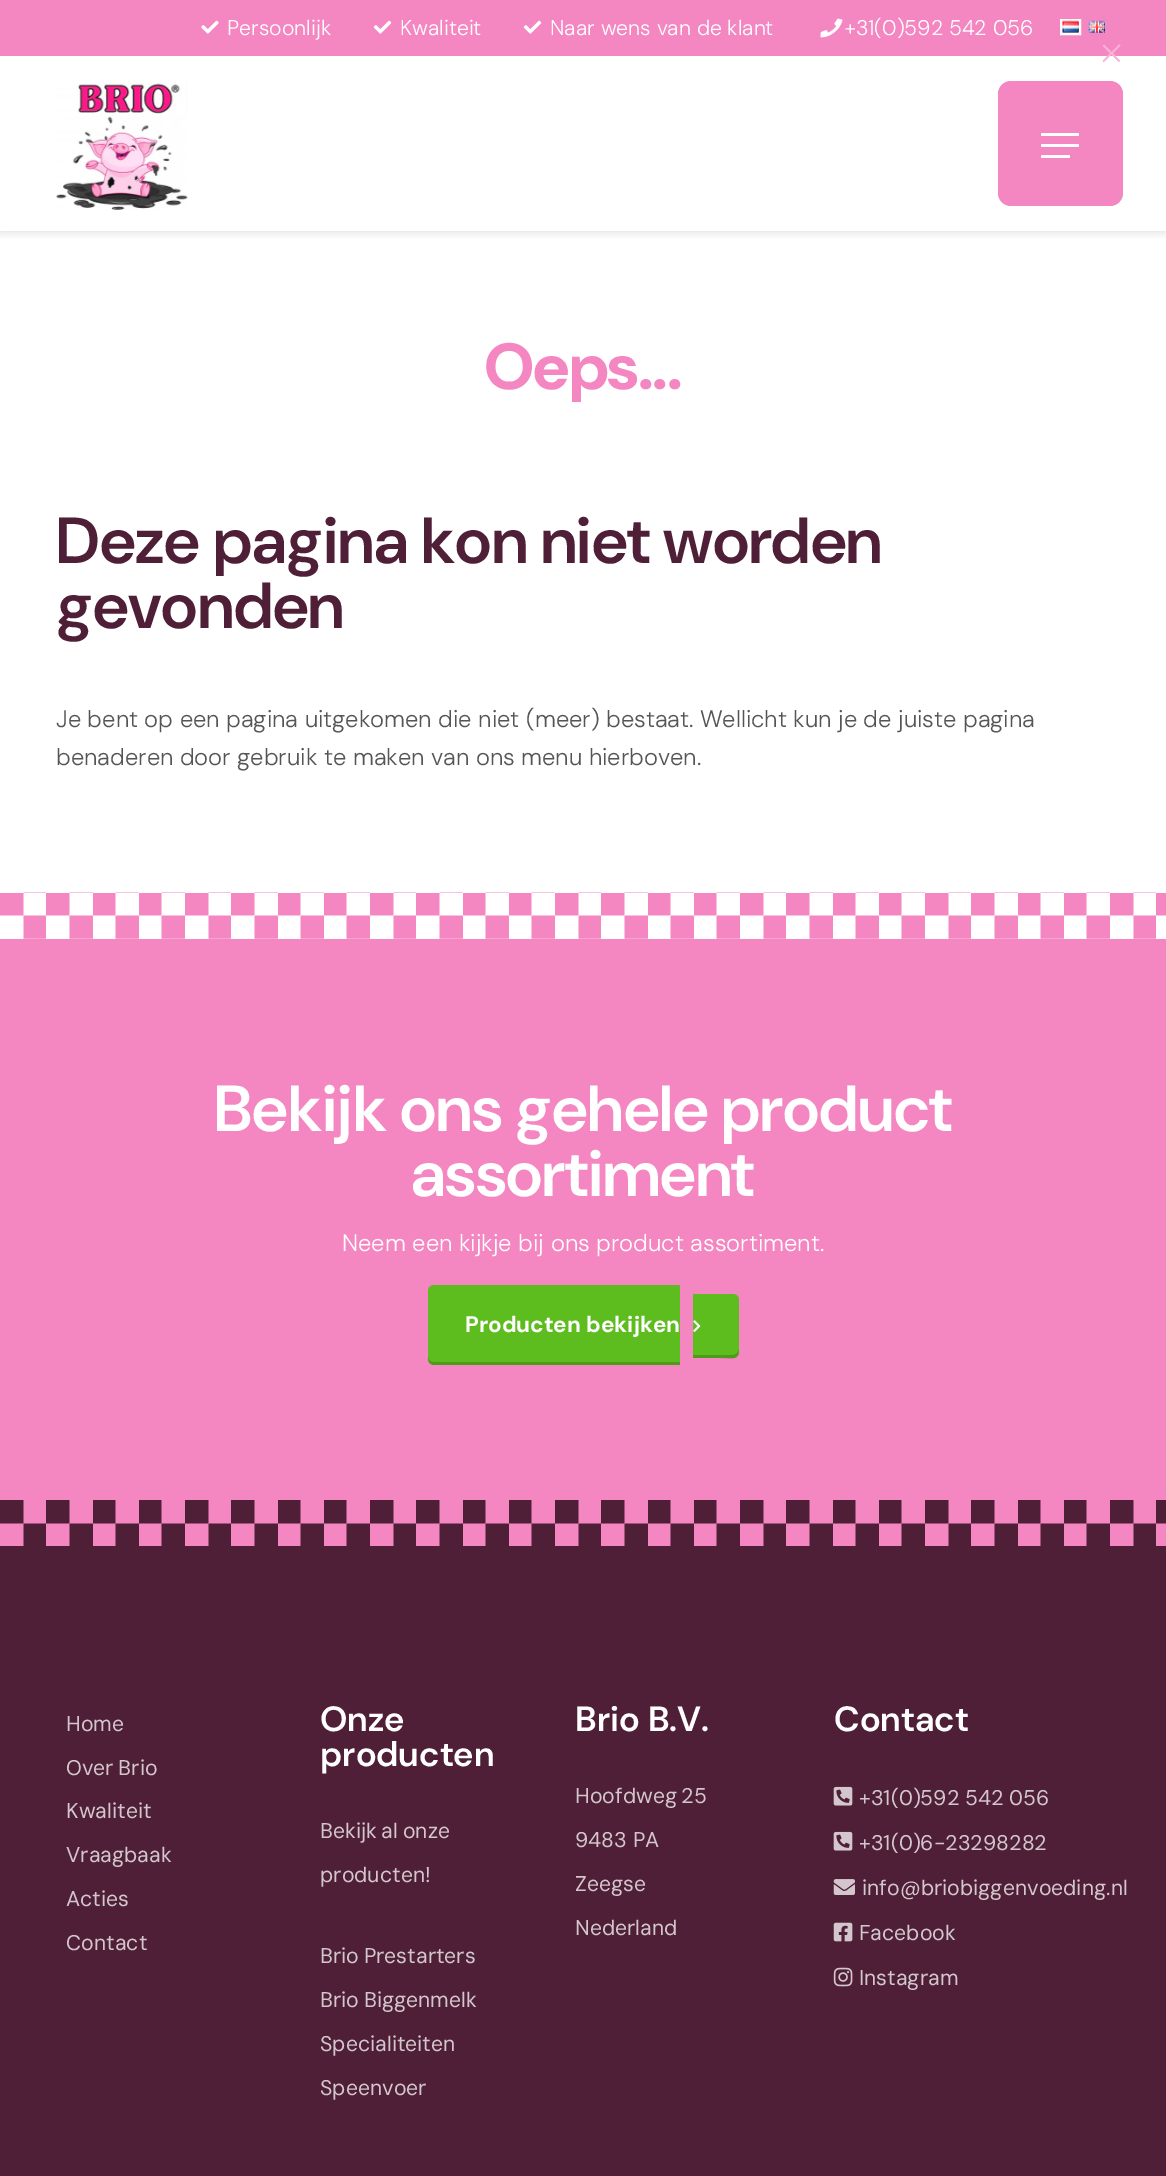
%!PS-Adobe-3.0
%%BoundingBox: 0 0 1166 2176
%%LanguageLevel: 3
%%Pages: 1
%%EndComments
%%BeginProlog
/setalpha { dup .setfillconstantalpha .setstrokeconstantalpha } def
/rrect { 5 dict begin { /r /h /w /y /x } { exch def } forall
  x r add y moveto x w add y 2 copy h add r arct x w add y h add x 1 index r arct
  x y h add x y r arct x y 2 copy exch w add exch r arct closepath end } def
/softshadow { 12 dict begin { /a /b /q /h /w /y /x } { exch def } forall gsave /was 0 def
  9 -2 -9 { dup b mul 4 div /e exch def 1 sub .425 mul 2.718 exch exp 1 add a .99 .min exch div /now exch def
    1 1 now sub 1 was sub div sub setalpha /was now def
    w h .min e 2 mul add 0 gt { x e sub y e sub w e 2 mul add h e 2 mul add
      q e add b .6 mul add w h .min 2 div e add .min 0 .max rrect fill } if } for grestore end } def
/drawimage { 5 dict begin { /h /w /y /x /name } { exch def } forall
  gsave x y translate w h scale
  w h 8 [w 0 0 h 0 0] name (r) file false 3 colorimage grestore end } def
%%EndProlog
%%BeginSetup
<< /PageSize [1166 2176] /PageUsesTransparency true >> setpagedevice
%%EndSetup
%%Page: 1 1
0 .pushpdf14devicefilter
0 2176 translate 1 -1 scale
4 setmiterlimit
1 setgray
0 0 1166 2176 rectfill
gsave
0 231 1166 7 rectclip
0 setgray
0 0 1166 231 0 6 0.15 softshadow
grestore
0.957 0.525 0.757 setrgbcolor
0 0 1166 56 rectfill
(images/1.raw) 201 20 18 14 drawimage
(images/2.raw) 373 20 19 14 drawimage
(images/2.raw) 523 20 19 14 drawimage
(images/3.raw) 820 18 23 20 drawimage
1 setgray
3 setlinewidth
1061.5 20.5 18 13 rectstroke
(images/4.raw) 1062 20 17 13 drawimage
(images/5.raw) 1088 20 17 13 drawimage
(images/6.raw) 56 83 132 127 drawimage
0.957 0.525 0.757 setrgbcolor
998 81 125 125 13 rrect fill
1 setgray
1041 133 38 3 1.5 rrect fill
1041 144 38 3 1.5 rrect fill
1041 155 29 3 1.5 rrect fill
0.957 0.525 0.757 setrgbcolor
0 939 1166 607 rectfill
(images/7.raw) 0 892 1166 47 drawimage
0.369 0.741 0.118 setrgbcolor
newpath 434 1285 moveto 680 1285 lineto 680 1365 lineto 434 1365 lineto 430.5 1365 428 1362.5 428 1359 curveto 428 1291 lineto 428 1287.5 430.5 1285 434 1285 curveto closepath fill
0.2 setalpha
0.055 setgray
newpath 428 1356 moveto 428 1359 lineto 428 1362 431 1365 434 1365 curveto 680 1365 lineto 680 1362 lineto 434 1362 lineto 430 1362 428 1360 428 1356 curveto closepath fill
1 setalpha
0.369 0.741 0.118 setrgbcolor
newpath 693 1294 moveto 733 1294 lineto 736.5 1294 739 1296.5 739 1300 curveto 739 1352 lineto 739 1355.5 736.5 1358 733 1358 curveto 693 1358 lineto closepath fill
0.2 setalpha
0.055 setgray
newpath 693 1355 moveto 693 1358 lineto 720 1358 lineto 730 1358 739 1362 739 1349 curveto 739 1352 736 1355 732 1355 curveto closepath fill
1 setalpha
(images/8.raw) 693 1320 8 12 drawimage
0.31 0.122 0.216 setrgbcolor
0 1546 1166 630 rectfill
(images/9.raw) 0 1500 1166 46 drawimage
(images/10.raw) 833 1786 20 20 drawimage
(images/10.raw) 833 1831 20 20 drawimage
(images/11.raw) 833 1879 22 16 drawimage
(images/12.raw) 833 1922 20 20 drawimage
(images/13.raw) 833 1967 20 20 drawimage
/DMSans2-Light [21.25 0 0 -21.25 0 0] selectfont
1 setgray
227 35 moveto (Persoonlijk) show
400 35 moveto (Kwaliteit) show
550 35 moveto (Naar wens van de klant) show
845 35 moveto (+31\(0\)592 542 056) show
/DMSans-ExtraLight [54 0 0 -54 0 0] selectfont
0.973 0.698 0.843 setrgbcolor
1098 69 moveto (×) show
/DMSans-ExtraBold [65 0 0 -65 0 0] selectfont
0.957 0.525 0.757 setrgbcolor
484 389 moveto -1 0 (Oeps...) ashow
/DMSans-SemiBold [65 0 0 -65 0 0] selectfont
0.31 0.122 0.216 setrgbcolor
56 563 moveto (Deze pagina kon niet worden) show
56 628 moveto (gevonden) show
/DMSans-Light [23.75 0 0 -23.75 0 0] selectfont
0.333 setgray
56 727 moveto (Je bent op een pagina uitgekomen die niet \(meer\) bestaat. Wellicht kun je de juiste pagina) show
56 765 moveto (benaderen door gebruik te maken van ons menu hierboven.) show
/DMSans-SemiBold [65 0 0 -65 0 0] selectfont
1 setgray
214 1131 moveto (Bekijk ons gehele product) show
411 1196 moveto (assortiment) show
/DMSans-Light [23.75 0 0 -23.75 0 0] selectfont
342 1251 moveto (Neem een kijkje bij ons product assortiment.) show
/DMSans-Bold [22.5 0 0 -22.5 0 0] selectfont
465 1332 moveto (Producten bekijken) show
/DMSans-Regular [21.25 0 0 -21.25 0 0] selectfont
0.827 0.78 0.804 setrgbcolor
66 1731 moveto (Home) show
66 1775 moveto -1 0 32 (Over Brio) widthshow
66 1818 moveto (Kwaliteit) show
66 1862 moveto (Vraagbaak) show
66 1906 moveto (Acties) show
66 1950 moveto (Contact) show
/DMSans2-SemiBold [35 0 0 -35 0 0] selectfont
1 setgray
320 1731 moveto (Onze) show
320 1766 moveto (producten) show
/DMSans-Regular [21.25 0 0 -21.25 0 0] selectfont
0.827 0.78 0.804 setrgbcolor
320 1838 moveto -1 0 32 (Bekijk al onze) widthshow
320 1882 moveto (producten!) show
320 1963 moveto -1 0 32 (Brio Prestarters) widthshow
320 2007 moveto -1 0 32 (Brio Biggenmelk) widthshow
320 2051 moveto (Specialiteiten) show
320 2095 moveto (Speenvoer) show
/DMSans2-SemiBold [35 0 0 -35 0 0] selectfont
1 setgray
575 1731 moveto (Brio B.V.) show
/DMSans-Regular [21.25 0 0 -21.25 0 0] selectfont
0.827 0.78 0.804 setrgbcolor
575 1803 moveto -1 0 32 (Hoofdweg 25) widthshow
575 1847 moveto (9483 PA) show
575 1891 moveto (Zeegse) show
575 1935 moveto (Nederland) show
/DMSans2-SemiBold [35 0 0 -35 0 0] selectfont
1 setgray
834 1731 moveto (Contact) show
/DMSans-Regular [21.25 0 0 -21.25 0 0] selectfont
0.827 0.78 0.804 setrgbcolor
859 1805 moveto (+31\(0\)592 542 056) show
859 1850 moveto (+31\(0\)6-23298282) show
862 1895 moveto (info@briobiggenvoeding.nl) show
859 1940 moveto (Facebook) show
859 1985 moveto (Instagram) show
.poppdf14devicefilter showpage
%%EOF
